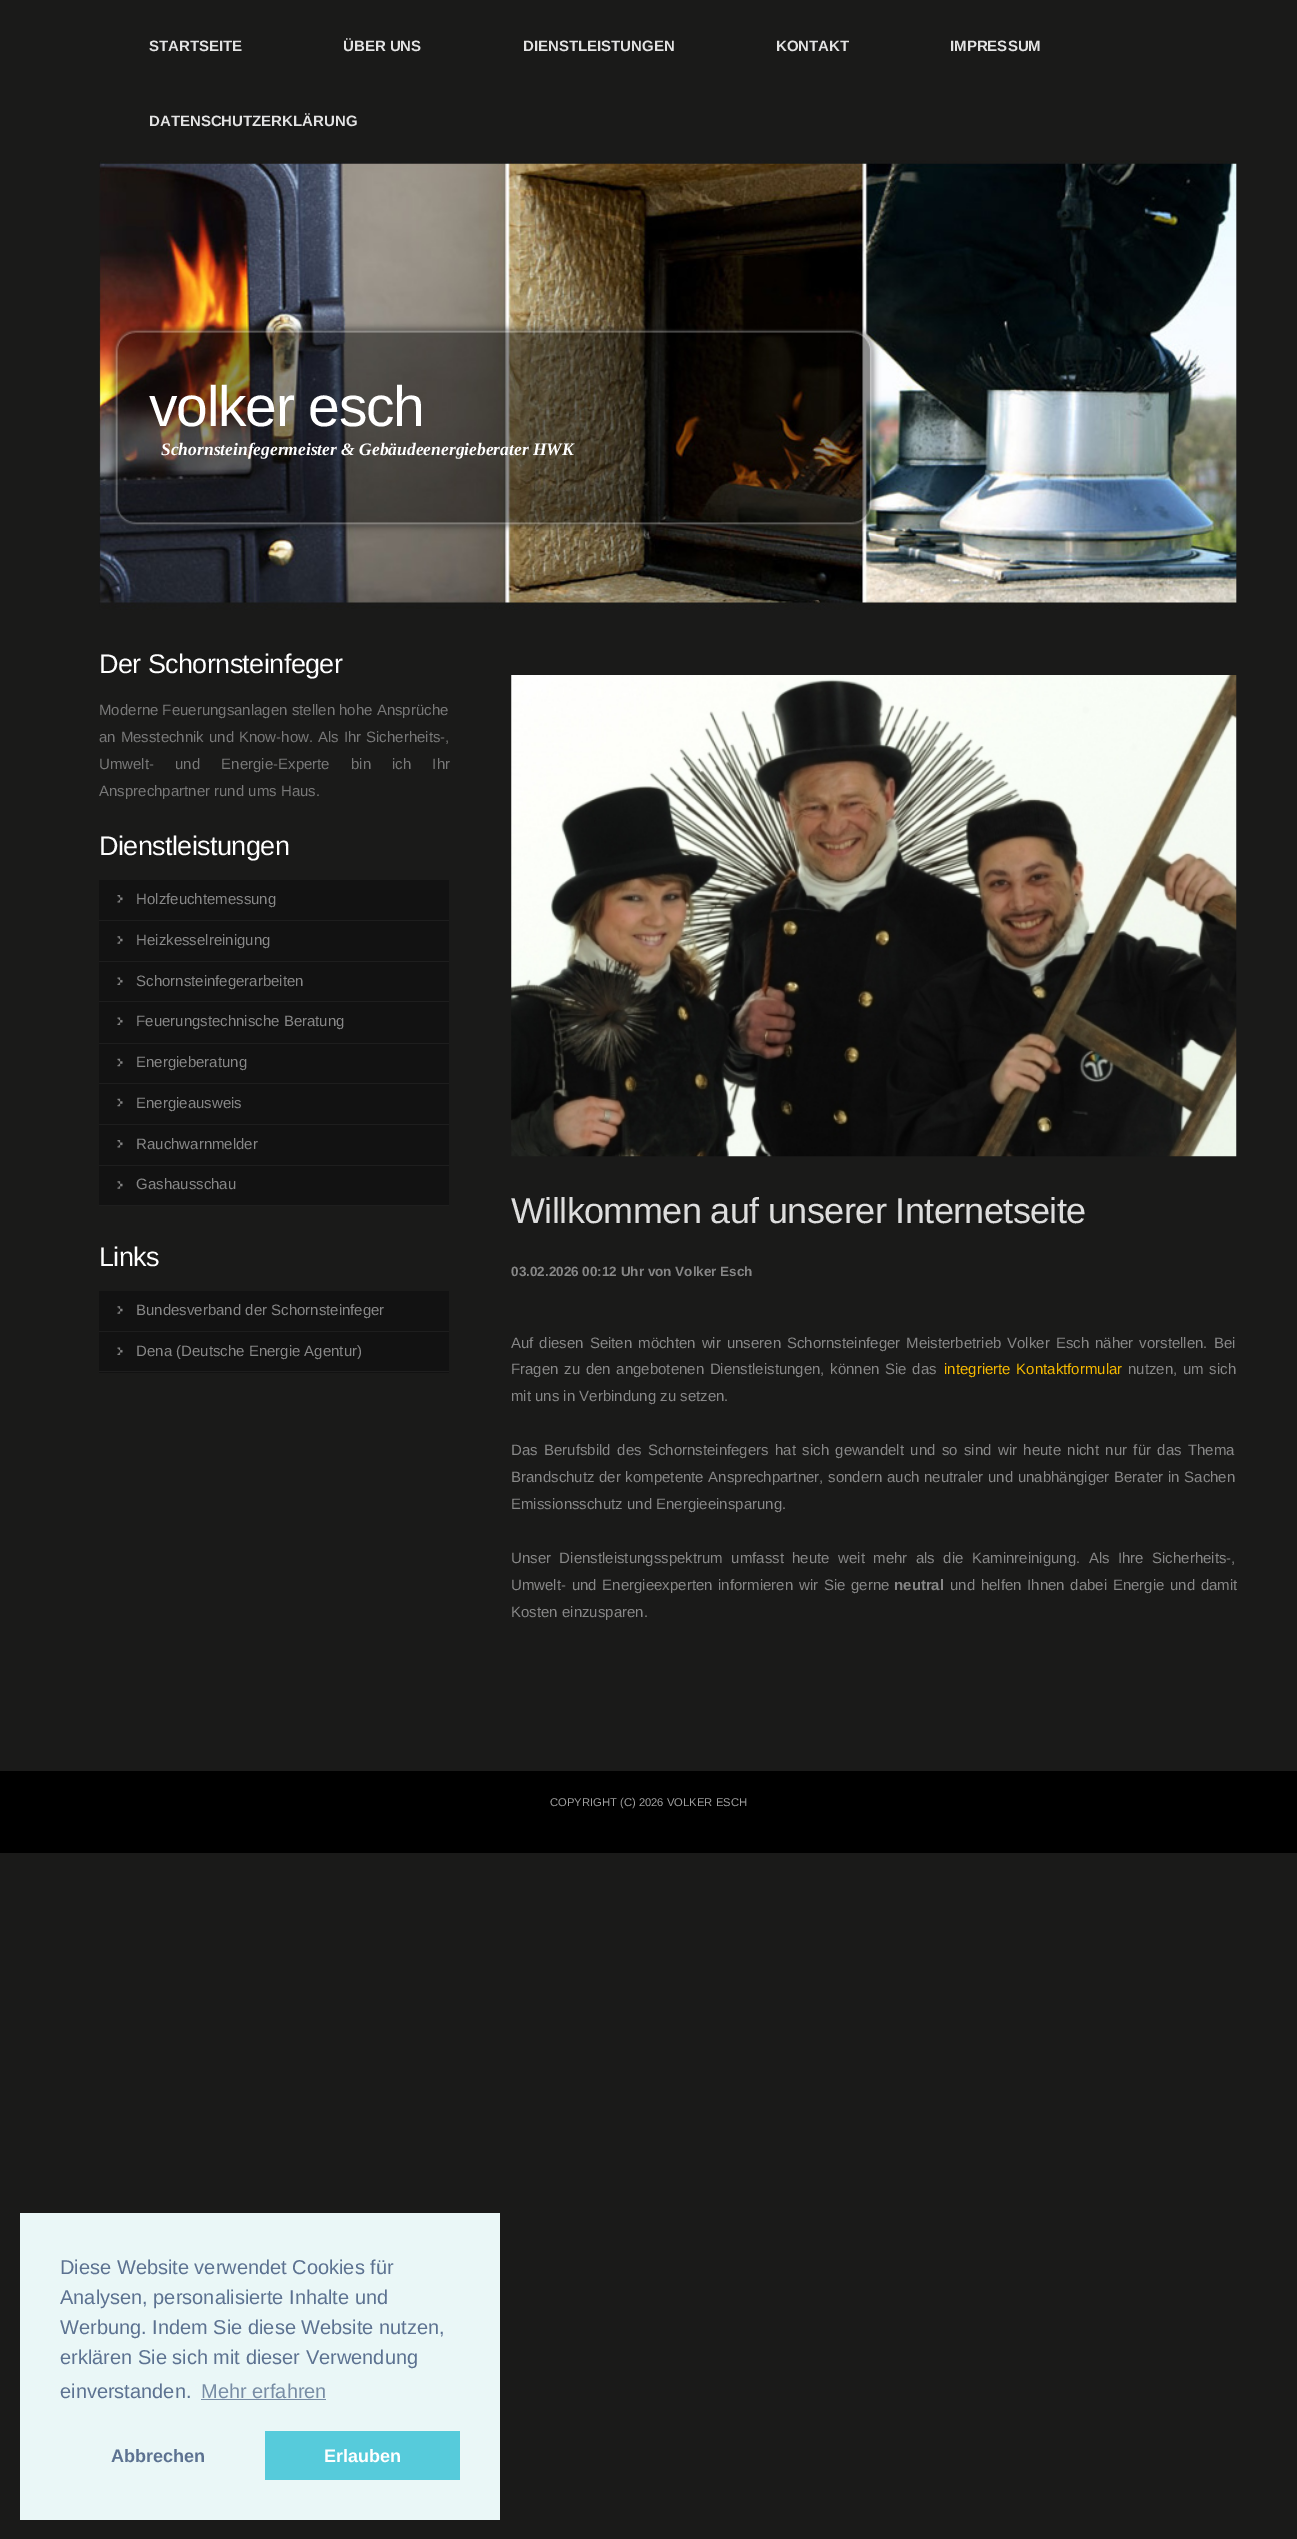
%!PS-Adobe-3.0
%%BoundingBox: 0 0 1297 2539
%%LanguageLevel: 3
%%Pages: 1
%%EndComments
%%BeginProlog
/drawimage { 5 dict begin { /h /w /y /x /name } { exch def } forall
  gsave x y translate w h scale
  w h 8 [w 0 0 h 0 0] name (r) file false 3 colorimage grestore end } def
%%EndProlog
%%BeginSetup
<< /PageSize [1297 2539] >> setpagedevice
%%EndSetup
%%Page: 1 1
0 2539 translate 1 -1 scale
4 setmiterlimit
0.102 0.102 0.098 setrgbcolor
0 0 1297 2539 rectfill
(images/1.raw) 99 160 1138 450 drawimage
0.071 setgray
99 880 350 40 rectfill
0.118 setgray
99 920 350 1 rectfill
(images/2.raw) 117 895 6 8 drawimage
0.071 setgray
99 921 350 122 rectfill
0.118 setgray
99 961 350 1 rectfill
(images/3.raw) 117 936 6 8 drawimage
99 1001 350 1 rectfill
(images/4.raw) 117 977 6 8 drawimage
99 1043 350 1 rectfill
(images/4.raw) 117 1017 6 8 drawimage
0.071 setgray
99 1044 350 39 rectfill
0.118 setgray
99 1083 350 1 rectfill
(images/5.raw) 117 1058 6 9 drawimage
0.071 setgray
99 1084 350 40 rectfill
0.118 setgray
99 1124 350 1 rectfill
(images/5.raw) 117 1098 6 9 drawimage
0.071 setgray
99 1125 350 40 rectfill
0.118 setgray
99 1165 350 1 rectfill
(images/2.raw) 117 1140 6 8 drawimage
0.071 setgray
99 1166 350 39 rectfill
0.118 setgray
99 1205 350 1 rectfill
(images/3.raw) 117 1181 6 8 drawimage
0.071 setgray
99 1291 350 82 rectfill
0.118 setgray
99 1331 350 1 rectfill
(images/3.raw) 117 1306 6 8 drawimage
99 1371 350 1 rectfill
(images/4.raw) 117 1347 6 8 drawimage
(images/6.raw) 511 675 726 482 drawimage
0 setgray
0 1771 1297 82 rectfill
0.918 0.969 0.969 setrgbcolor
20 2213 480 307 rectfill
0.471 0.553 0.647 setrgbcolor
201 2399 125 1 rectfill
0.337 0.796 0.859 setrgbcolor
265 2431 195 49 rectfill
/LiberationSans-Bold [15 0 0 -15 0 0] selectfont
0.89 setgray
149 51 moveto (STARTSEITE) show
343 51 moveto (ÜBER UNS) show
523 51 moveto (DIENSTLEISTUNGEN) show
776 51 moveto (KONTAKT) show
950 51 moveto (IMPRESSUM) show
149 126 moveto (DATENSCHUTZERKLÄRUNG) show
/LiberationSans-Regular [57 0 0 -57 0 0] selectfont
1 setgray
149 426 moveto -1.25 0 (volker esch) ashow
/LiberationSerif-BoldItalic [17.5 0 0 -17.5 0 0] selectfont
161 455 moveto (Schornsteinfegermeister & Gebäudeenergieberater HWK) show
/LiberationSans-Regular [27 0 0 -27 0 0] selectfont
99 673 moveto -0.6 0 (Der Schornsteinfeger) ashow
/LiberationSans-Regular [15 0 0 -15 0 0] selectfont
0.471 setgray
99 715 moveto (Moderne Feuerungsanlagen stellen hohe Ansprüche) show
99 742 moveto 0.75 0 32 (an Messtechnik und Know-how. Als Ihr Sicherheits-,) widthshow
99 769 moveto 17 0 32 (Umwelt- und Energie-Experte bin ich Ihr) widthshow
99 796 moveto (Ansprechpartner rund ums Haus.) show
/LiberationSans-Regular [27 0 0 -27 0 0] selectfont
1 setgray
99 855 moveto -0.6 0 (Dienstleistungen) ashow
/LiberationSans-Regular [15 0 0 -15 0 0] selectfont
0.529 setgray
136 904 moveto (Holzfeuchtemessung) show
136 945 moveto (Heizkesselreinigung) show
136 986 moveto (Schornsteinfegerarbeiten) show
136 1026 moveto (Feuerungstechnische Beratung) show
136 1067 moveto (Energieberatung) show
136 1108 moveto (Energieausweis) show
136 1149 moveto (Rauchwarnmelder) show
136 1189 moveto (Gashausschau) show
/LiberationSans-Regular [27 0 0 -27 0 0] selectfont
1 setgray
99 1266 moveto -0.6 0 (Links) ashow
/LiberationSans-Regular [15 0 0 -15 0 0] selectfont
0.529 setgray
136 1315 moveto (Bundesverband der Schornsteinfeger) show
136 1356 moveto (Dena \(Deutsche Energie Agentur\)) show
/LiberationSans-Regular [36 0 0 -36 0 0] selectfont
0.867 setgray
511 1223 moveto -0.6 0 (Willkommen auf unserer Internetseite) ashow
/LiberationSans-Bold [13.5 0 0 -13.5 0 0] selectfont
0.529 setgray
511 1276 moveto (03.02.2026 00:12 Uhr von Volker Esch) show
/LiberationSans-Regular [15 0 0 -15 0 0] selectfont
511 1348 moveto 1.8 0 32 (Auf diesen Seiten möchten wir unseren Schornsteinfeger Meisterbetrieb Volker Esch näher vorstellen. Bei) widthshow
511 1374 moveto 1.5 0 32 (Fragen zu den angebotenen Dienstleistungen, können Sie das) widthshow
0.957 0.722 0 setrgbcolor
944 1374 moveto 1.5 0 32 (integrierte Kontaktformular) widthshow
0.529 setgray
1128 1374 moveto 1.5 0 32 (nutzen, um sich) widthshow
511 1401 moveto (mit uns in Verbindung zu setzen.) show
511 1455 moveto 2.25 0 32 (Das Berufsbild des Schornsteinfegers hat sich gewandelt und so sind wir heute nicht nur für das Thema) widthshow
511 1482 moveto 0.5 0 32 (Brandschutz der kompetente Ansprechpartner, sondern auch neutraler und unabhängiger Berater in Sachen) widthshow
511 1509 moveto (Emissionsschutz und Energieeinsparung.) show
511 1563 moveto 4.25 0 32 (Unser Dienstleistungsspektrum umfasst heute weit mehr als die Kaminreinigung. Als Ihre Sicherheits-,) widthshow
511 1590 moveto 1.5 0 32 (Umwelt- und Energieexperten informieren wir Sie gerne) widthshow
/LiberationSans-Bold [15 0 0 -15 0 0] selectfont
894 1590 moveto (neutral) show
/LiberationSans-Regular [15 0 0 -15 0 0] selectfont
950 1590 moveto 1.5 0 32 (und helfen Ihnen dabei Energie und damit) widthshow
511 1617 moveto (Kosten einzusparen.) show
/LiberationSans-Regular [11.25 0 0 -11.25 0 0] selectfont
0.627 setgray
550 1806 moveto (COPYRIGHT \(C\) 2026 VOLKER ESCH) show
/LiberationSans-Regular [20 0 0 -20 0 0] selectfont
0.361 0.447 0.569 setrgbcolor
60 2274 moveto (Diese Website verwendet Cookies für) show
60 2304 moveto (Analysen, personalisierte Inhalte und) show
60 2334 moveto (Werbung. Indem Sie diese Website nutzen,) show
60 2364 moveto (erklären Sie sich mit dieser Verwendung) show
60 2398 moveto (einverstanden.) show
0.471 0.553 0.647 setrgbcolor
201 2398 moveto (Mehr erfahren) show
/LiberationSans-Bold [18 0 0 -18 0 0] selectfont
0.361 0.447 0.569 setrgbcolor
111 2462 moveto (Abbrechen) show
1 setgray
324 2462 moveto (Erlauben) show
showpage
%%EOF
